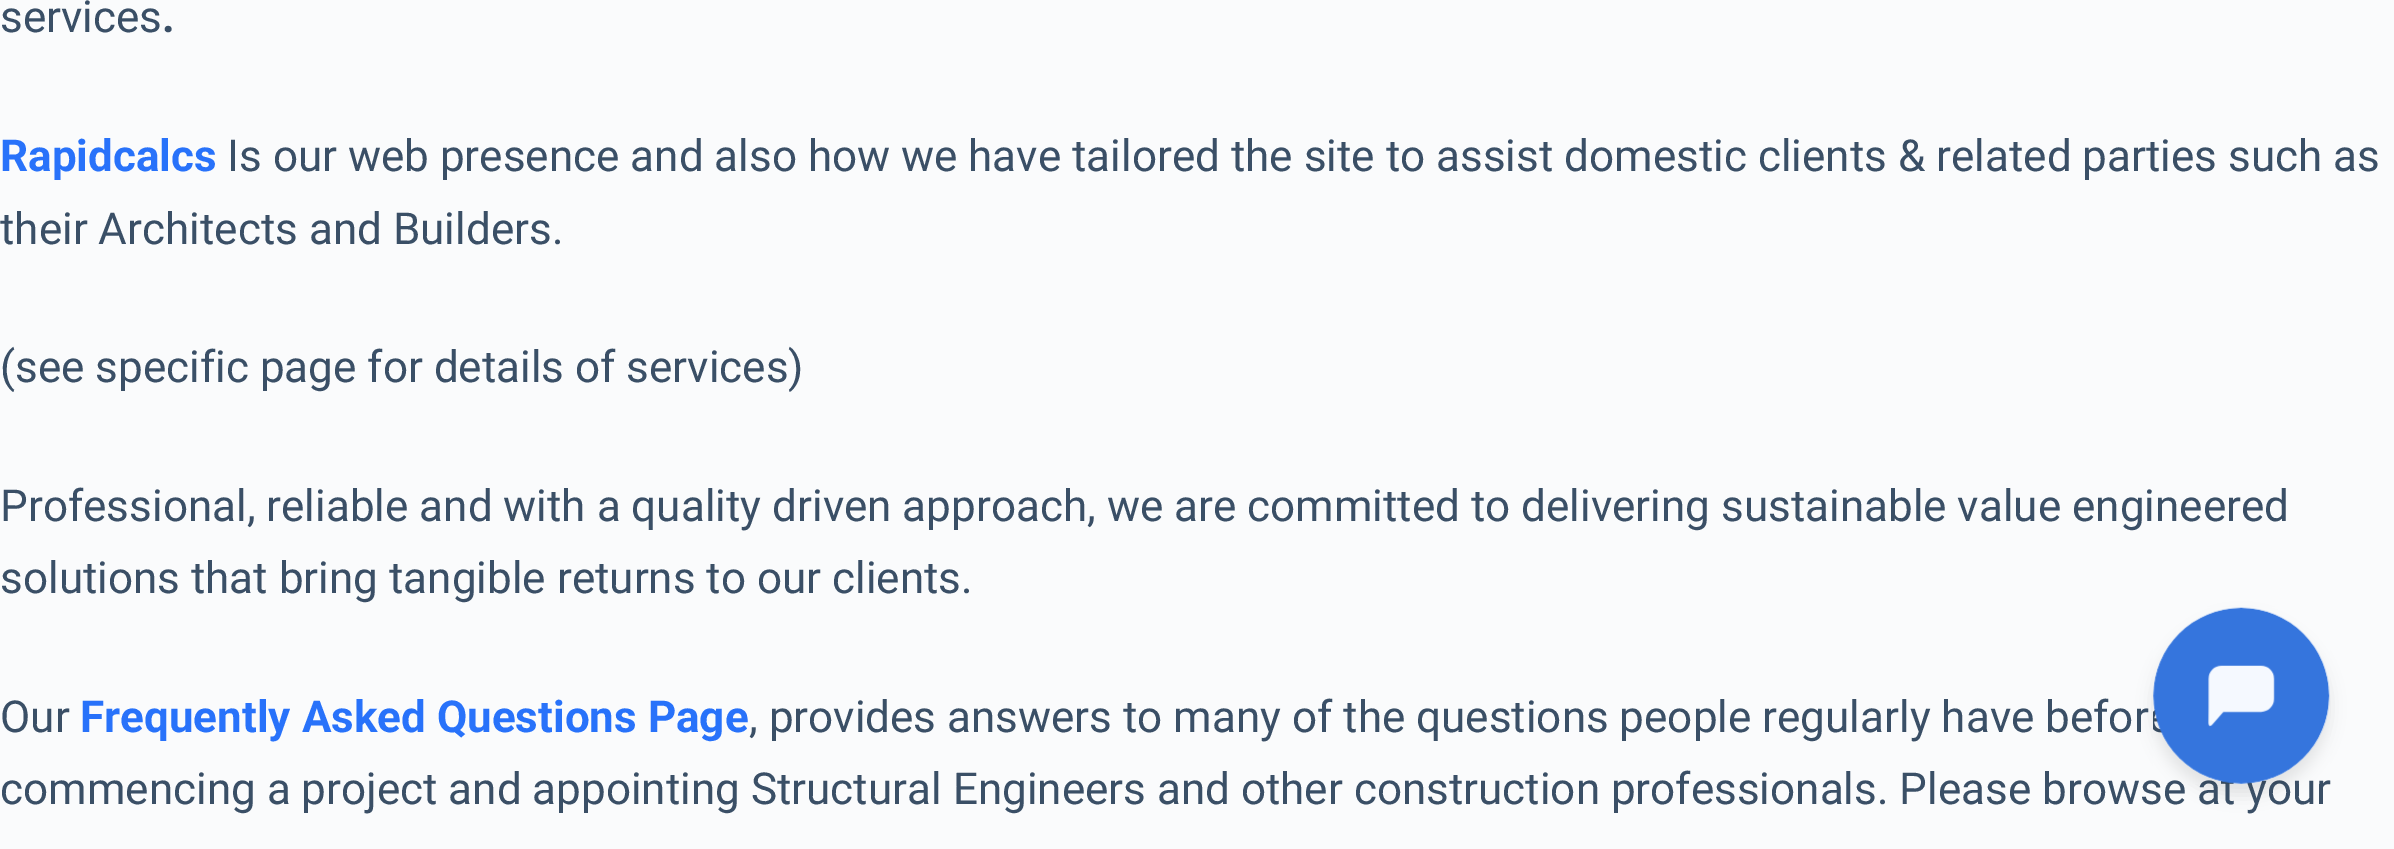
%!PS-Adobe-3.0
%%BoundingBox: 0 0 2394 849
%%LanguageLevel: 3
%%Pages: 1
%%EndComments
%%BeginProlog
/setalpha { dup .setfillconstantalpha .setstrokeconstantalpha } def
/rrect { 5 dict begin { /r /h /w /y /x } { exch def } forall
  x r add y moveto x w add y 2 copy h add r arct x w add y h add x 1 index r arct
  x y h add x y r arct x y 2 copy exch w add exch r arct closepath end } def
/softshadow { 12 dict begin { /a /b /q /h /w /y /x } { exch def } forall gsave /was 0 def
  9 -2 -9 { dup b mul 4 div /e exch def 1 sub .425 mul 2.718 exch exp 1 add a .99 .min exch div /now exch def
    1 1 now sub 1 was sub div sub setalpha /was now def
    w h .min e 2 mul add 0 gt { x e sub y e sub w e 2 mul add h e 2 mul add
      q e add b .6 mul add w h .min 2 div e add .min 0 .max rrect fill } if } for grestore end } def
/drawimage { 5 dict begin { /h /w /y /x /name } { exch def } forall
  gsave x y translate w h scale
  w h 8 [w 0 0 h 0 0] name (r) file false 3 colorimage grestore end } def
%%EndProlog
%%BeginSetup
<< /PageSize [2394 849] /PageUsesTransparency true >> setpagedevice
%%EndSetup
%%Page: 1 1
0 .pushpdf14devicefilter
0 849 translate 1 -1 scale
4 setmiterlimit
0.98 0.984 0.988 setrgbcolor
0 0 2394 849 rectfill
0 setgray
2153 619 176 176 88 8 0.1 softshadow
/Roboto-Regular [44 0 0 -44 0 0] selectfont
0.227 0.31 0.4 setrgbcolor
0 32 moveto (services) show
/Roboto-Bold [44 0 0 -44 0 0] selectfont
162 32 moveto (.) show
0.157 0.447 0.98 setrgbcolor
0 171 moveto (Rapidcalcs) show
/Roboto-Regular [44 0 0 -44 0 0] selectfont
0.227 0.31 0.4 setrgbcolor
227 171 moveto (Is our web presence and also how we have tailored the site to assist domestic clients & related parties such as) show
0 244 moveto (their Architects and Builders.) show
0 382 moveto (\(see specific page for details of services\)) show
0 521 moveto (Professional, reliable and with a quality driven approach, we are committed to delivering sustainable value engineered) show
0 593 moveto (solutions that bring tangible returns to our clients.) show
0 732 moveto (Our) show
/Roboto-Bold [44 0 0 -44 0 0] selectfont
0.157 0.447 0.98 setrgbcolor
80 732 moveto (Frequently Asked Questions Page) show
/Roboto-Regular [44 0 0 -44 0 0] selectfont
0.227 0.31 0.4 setrgbcolor
749 732 moveto (, provides answers to many of the questions people regularly have befor) show
0 804 moveto (commencing a project and appointing Structural Engineers and other construction professionals. Please browse at your) show
(images/1.raw) 2153 607 177 177 drawimage
.poppdf14devicefilter showpage
%%EOF
